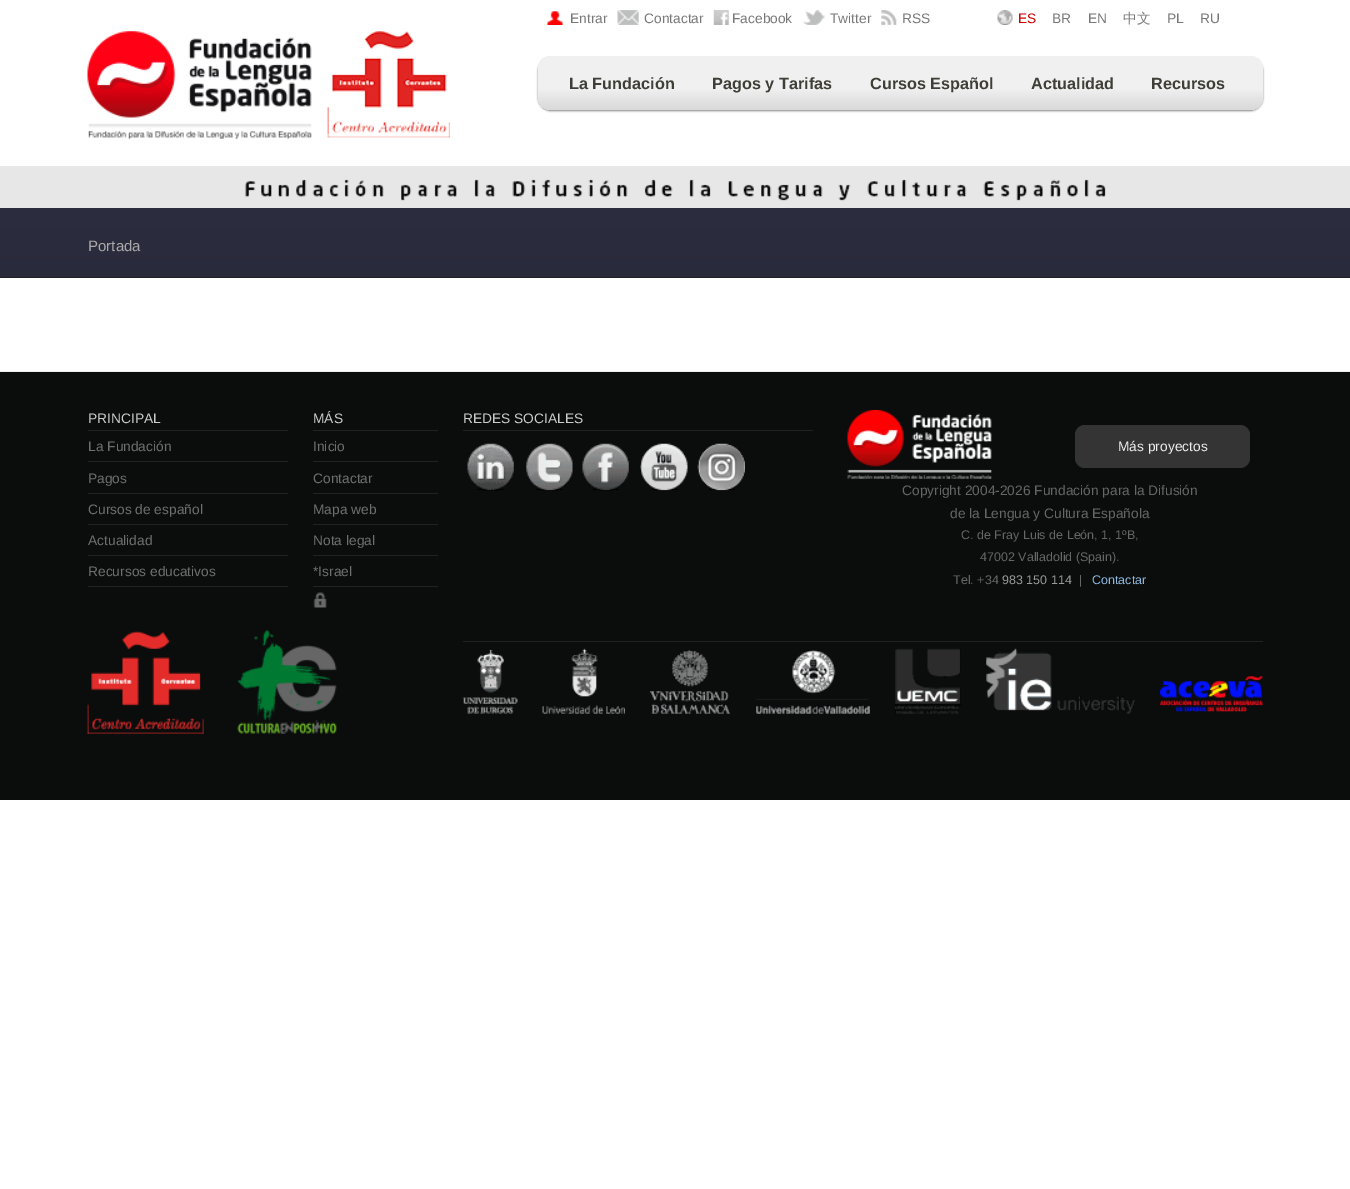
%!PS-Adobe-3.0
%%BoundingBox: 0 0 1350 1189
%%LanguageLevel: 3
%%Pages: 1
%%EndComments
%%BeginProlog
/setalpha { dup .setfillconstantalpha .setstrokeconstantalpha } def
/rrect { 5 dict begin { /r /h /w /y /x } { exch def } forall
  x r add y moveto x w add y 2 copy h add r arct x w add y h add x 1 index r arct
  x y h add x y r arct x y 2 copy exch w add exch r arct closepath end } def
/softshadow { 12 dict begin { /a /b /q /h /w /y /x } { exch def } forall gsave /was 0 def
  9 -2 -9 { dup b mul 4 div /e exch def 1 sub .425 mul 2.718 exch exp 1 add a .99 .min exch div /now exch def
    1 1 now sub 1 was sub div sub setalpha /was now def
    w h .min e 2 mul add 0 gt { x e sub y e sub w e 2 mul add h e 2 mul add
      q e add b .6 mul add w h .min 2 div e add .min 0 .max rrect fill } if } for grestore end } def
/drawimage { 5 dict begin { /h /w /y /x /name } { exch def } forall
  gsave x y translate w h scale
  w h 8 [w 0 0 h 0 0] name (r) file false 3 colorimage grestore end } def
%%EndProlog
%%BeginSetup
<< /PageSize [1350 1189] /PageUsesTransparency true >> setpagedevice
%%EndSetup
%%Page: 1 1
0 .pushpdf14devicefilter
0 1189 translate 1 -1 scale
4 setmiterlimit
1 setgray
0 0 1350 1189 rectfill
(images/1.raw) 547 11 16 14 drawimage
(images/2.raw) 617 10 22 15 drawimage
(images/3.raw) 713 10 16 15 drawimage
(images/4.raw) 802 10 23 15 drawimage
(images/5.raw) 881 10 16 15 drawimage
(images/6.raw) 997 10 16 15 drawimage
(images/7.raw) 87 31 363 108 drawimage
0.514 setgray
538 58 725 53 13 1 1 softshadow
gsave 538 56 725 54 13 rrect clip newpath
<< /ShadingType 2 /ColorSpace /DeviceRGB /Coords [538 110 538 56] /Extend [true true] /Function << /FunctionType 3 /Domain [0 1] /Functions [<< /FunctionType 2 /Domain [0 1] /C0 [0.851 0.851 0.851] /C1 [0.941 0.941 0.941] /N 1 >> << /FunctionType 2 /Domain [0 1] /C0 [0.941 0.941 0.941] /C1 [0.941 0.941 0.941] /N 1 >>] /Bounds [0.4] /Encode [0 1 0 1] >> >> shfill grestore
0.91 0.906 0.906 setrgbcolor
0 166 1350 42 rectfill
(images/8.raw) 244 179 862 22 drawimage
0.094 0.09 0.11 setrgbcolor
0 277 1350 1 rectfill
(images/9.raw) 0 208 1350 70 drawimage
0.043 0.047 0.047 setrgbcolor
0 372 1350 428 rectfill
0.933 setgray
0 371 1350 1 rectfill
0.133 setgray
88 430 200 1 rectfill
88 461 200 1 rectfill
88 493 200 1 rectfill
88 524 200 1 rectfill
88 555 200 1 rectfill
88 586 200 1 rectfill
313 430 125 1 rectfill
313 461 125 1 rectfill
313 493 125 1 rectfill
313 524 125 1 rectfill
313 555 125 1 rectfill
313 586 125 1 rectfill
(images/10.raw) 313 592 14 16 drawimage
(images/11.raw) 87 631 117 103 drawimage
(images/12.raw) 237 630 100 104 drawimage
463 430 350 1 rectfill
(images/13.raw) 467 443 47 48 drawimage
(images/14.raw) 526 443 47 48 drawimage
(images/15.raw) 582 443 47 48 drawimage
(images/16.raw) 640 443 48 48 drawimage
(images/17.raw) 697 443 48 48 drawimage
(images/18.raw) 847 410 145 69 drawimage
0.204 setgray
1075 425 175 43 10 rrect fill
0.133 setgray
463 641 800 1 rectfill
(images/19.raw) 462 649 56 65 drawimage
(images/20.raw) 542 648 83 66 drawimage
(images/21.raw) 650 650 80 64 drawimage
(images/22.raw) 756 650 114 64 drawimage
(images/23.raw) 895 648 66 66 drawimage
(images/24.raw) 986 648 149 66 drawimage
(images/25.raw) 1160 676 103 36 drawimage
/LiberationSans-Regular [13.75 0 0 -13.75 0 0] selectfont
0.467 setgray
570 23 moveto (Entrar) show
644 23 moveto (Contactar) show
732 23 moveto (Facebook) show
830 23 moveto (Twitter) show
902 23 moveto (RSS) show
0.8 0 0 setrgbcolor
1018 23 moveto (ES) show
0.467 setgray
1052 23 moveto (BR) show
1088 23 moveto (EN) show
/WenQuanYiZenHei-Medium [13.75 0 0 -13.75 0 0] selectfont
1123 23 moveto (中文) show
/LiberationSans-Regular [13.75 0 0 -13.75 0 0] selectfont
1167 23 moveto (PL) show
1200 23 moveto (RU) show
/LiberationSans-Bold [16.25 0 0 -16.25 0 0] selectfont
0.247 0.247 0.22 setrgbcolor
569 89 moveto (La Fundación) show
712 89 moveto (Pagos y Tarifas) show
870 89 moveto (Cursos Español) show
1031 89 moveto (Actualidad) show
1151 89 moveto (Recursos) show
/LiberationSans-Regular [15 0 0 -15 0 0] selectfont
0.667 setgray
88 251 moveto (Portada) show
/LiberationSans-Regular [13.75 0 0 -13.75 0 0] selectfont
0.8 setgray
88 423 moveto (PRINCIPAL) show
0.435 setgray
88 451 moveto (La Fundación) show
88 483 moveto (Pagos) show
88 514 moveto (Cursos de español) show
88 545 moveto (Actualidad) show
88 576 moveto (Recursos educativos) show
0.8 setgray
313 423 moveto (MÁS) show
0.435 setgray
313 451 moveto (Inicio) show
313 483 moveto (Contactar) show
313 514 moveto (Mapa web) show
313 545 moveto (Nota legal) show
313 576 moveto (*Israel) show
0.8 setgray
463 423 moveto (REDES SOCIALES) show
0.933 setgray
1118 451 moveto (Más proyectos) show
0.4 setgray
902 495 moveto (Copyright 2004-2026 Fundación para la Difusión) show
950 518 moveto (de la Lengua y Cultura Española) show
/LiberationSans-Regular [12.5 0 0 -12.5 0 0] selectfont
961 539 moveto (C. de Fray Luis de León, 1, 1ºB,) show
980 561 moveto (47002 Valladolid \(Spain\).) show
953 584 moveto (Tel. +34) show
0.6 setgray
1002 584 moveto (983 150 114) show
0.4 setgray
1079 584 moveto (|) show
0.545 0.725 0.875 setrgbcolor
1092 584 moveto (Contactar) show
.poppdf14devicefilter showpage
%%EOF
